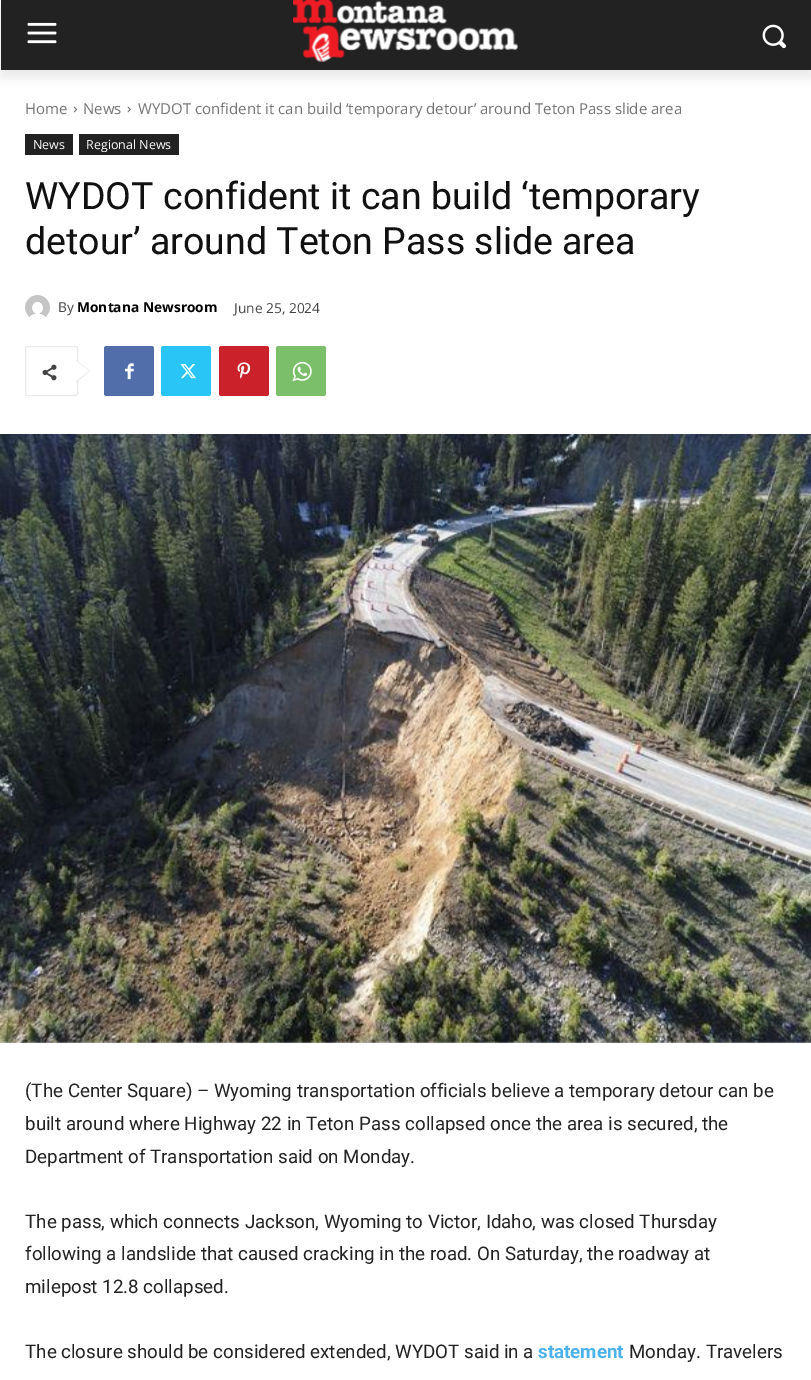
%!PS-Adobe-3.0
%%BoundingBox: 0 0 811 1380
%%LanguageLevel: 3
%%Pages: 1
%%EndComments
%%BeginProlog
/setalpha { dup .setfillconstantalpha .setstrokeconstantalpha } def
/rrect { 5 dict begin { /r /h /w /y /x } { exch def } forall
  x r add y moveto x w add y 2 copy h add r arct x w add y h add x 1 index r arct
  x y h add x y r arct x y 2 copy exch w add exch r arct closepath end } def
/softshadow { 12 dict begin { /a /b /q /h /w /y /x } { exch def } forall gsave /was 0 def
  9 -2 -9 { dup b mul 4 div /e exch def 1 sub .425 mul 2.718 exch exp 1 add a .99 .min exch div /now exch def
    1 1 now sub 1 was sub div sub setalpha /was now def
    w h .min e 2 mul add 0 gt { x e sub y e sub w e 2 mul add h e 2 mul add
      q e add b .6 mul add w h .min 2 div e add .min 0 .max rrect fill } if } for grestore end } def
/drawimage { 5 dict begin { /h /w /y /x /name } { exch def } forall
  gsave x y translate w h scale
  w h 8 [w 0 0 h 0 0] name (r) file false 3 colorimage grestore end } def
%%EndProlog
%%BeginSetup
<< /PageSize [811 1380] /PageUsesTransparency true >> setpagedevice
%%EndSetup
%%Page: 1 1
0 .pushpdf14devicefilter
0 1380 translate 1 -1 scale
4 setmiterlimit
1 setgray
0 0 811 1380 rectfill
0.133 setgray
1 0 810 70 rectfill
(images/1.raw) 27 22 30 22 drawimage
(images/2.raw) 293 0 225 62 drawimage
(images/3.raw) 762 24 24 25 drawimage
gsave
newpath 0 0 moveto 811 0 lineto 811 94 lineto 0 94 lineto closepath 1 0 moveto 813 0 lineto 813 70 lineto 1 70 lineto closepath eoclip newpath
0 setgray
1 8 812 70 0 5 0.08 softshadow
grestore
(images/4.raw) 73 106 5 7 drawimage
(images/5.raw) 127 106 4 7 drawimage
25 134 48 21 rectfill
79 134 100 21 rectfill
(images/6.raw) 25 295 25 22 drawimage
0.914 setgray
25.5 346.5 52 49 2 rrect stroke
newpath 76 382.5 moveto 76 360 lineto 90 371 lineto closepath fill
(images/7.raw) 42 364 15 17 drawimage
1 setgray
newpath 76 381 moveto 76 361 lineto 89 371 lineto closepath fill
0.318 0.431 0.671 setrgbcolor
104 346 50 50 2.5 rrect fill
(images/8.raw) 125 363 9 17 drawimage
0.161 0.773 0.965 setrgbcolor
161 346 50 50 2.5 rrect fill
(images/9.raw) 180 364 16 15 drawimage
0.792 0.129 0.165 setrgbcolor
219 346 50 50 2.5 rrect fill
(images/10.raw) 237 362 14 17 drawimage
0.482 0.749 0.416 setrgbcolor
276 346 50 50 2.5 rrect fill
(images/11.raw) 292 361 20 21 drawimage
(images/12.raw) 0 434 811 609 drawimage
/OpenSans-Regular [15 0 0 -15 0 0] selectfont
0.455 setgray
25 114 moveto (Home) show
83 114 moveto (News) show
138 114 moveto (WYDOT confident it can build ‘temporary detour’ around Teton Pass slide area) show
/OpenSans-Regular [12.5 0 0 -12.5 0 0] selectfont
1 setgray
33 149 moveto (News) show
86 149 moveto (Regional News) show
/Roboto-Regular [37.5 0 0 -37.5 0 0] selectfont
0.067 setgray
25 209 moveto (WYDOT confident it can build ‘temporary) show
25 254 moveto (detour’ around Teton Pass slide area) show
/OpenSans-Regular [13.75 0 0 -13.75 0 0] selectfont
0.267 setgray
58 312 moveto (By) show
/OpenSans-Bold [13.75 0 0 -13.75 0 0] selectfont
0 setgray
77 312 moveto (Montana Newsroom) show
/OpenSans-Regular [13.75 0 0 -13.75 0 0] selectfont
0.267 setgray
234 313 moveto (June 25, 2024) show
/Roboto-Regular [18.75 0 0 -18.75 0 0] selectfont
0.133 setgray
25 1097 moveto (\(The Center Square\) – Wyoming transportation officials believe a temporary detour can be) show
25 1130 moveto (built around where Highway 22 in Teton Pass collapsed once the area is secured, the) show
25 1163 moveto (Department of Transportation said on Monday.) show
25 1228 moveto (The pass, which connects Jackson, Wyoming to Victor, Idaho, was closed Thursday) show
25 1260 moveto (following a landslide that caused cracking in the road. On Saturday, the roadway at) show
25 1293 moveto (milepost 12.8 collapsed.) show
25 1358 moveto (The closure should be considered extended, WYDOT said in a) show
/Roboto-Bold [18.75 0 0 -18.75 0 0] selectfont
0.302 0.698 0.925 setrgbcolor
538 1358 moveto (statement) show
/Roboto-Regular [18.75 0 0 -18.75 0 0] selectfont
0.133 setgray
629 1358 moveto (Monday. Travelers) show
.poppdf14devicefilter showpage
%%EOF
